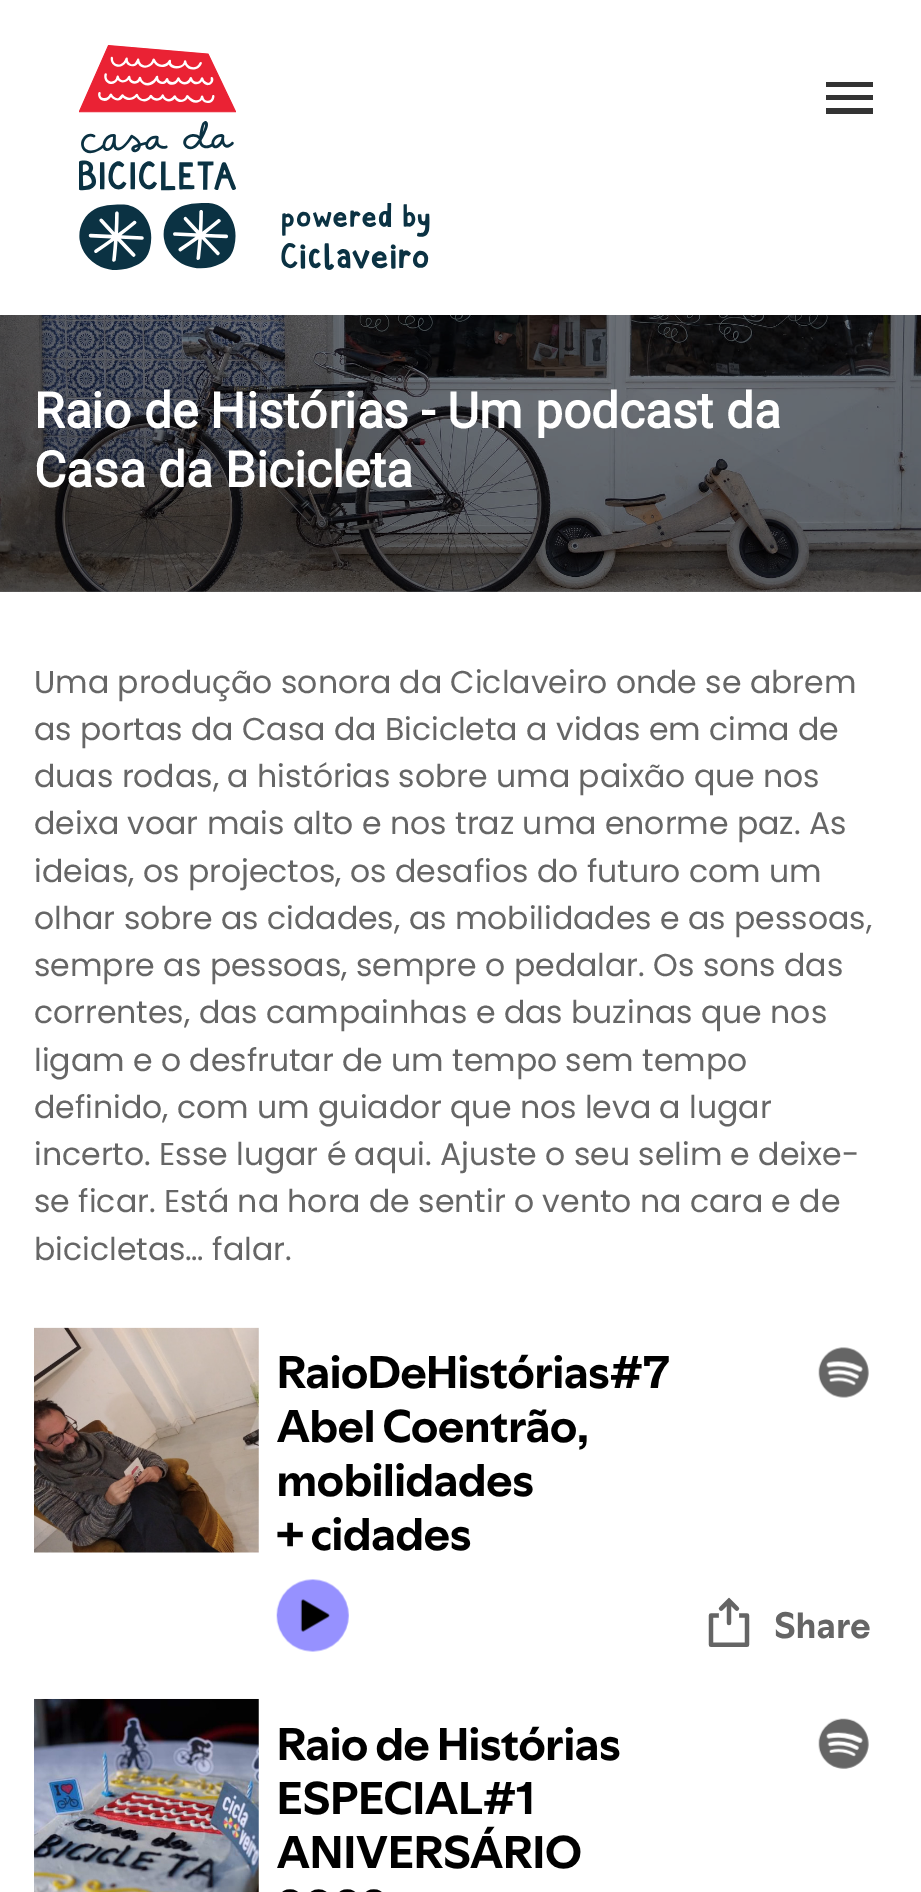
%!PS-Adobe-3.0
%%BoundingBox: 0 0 921 1892
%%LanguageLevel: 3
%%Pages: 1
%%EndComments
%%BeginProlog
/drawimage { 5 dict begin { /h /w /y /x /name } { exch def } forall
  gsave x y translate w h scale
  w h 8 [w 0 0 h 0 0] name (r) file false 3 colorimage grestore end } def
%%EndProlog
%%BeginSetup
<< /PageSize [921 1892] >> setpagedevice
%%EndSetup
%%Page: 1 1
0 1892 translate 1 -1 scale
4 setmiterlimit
1 setgray
0 0 921 1892 rectfill
(images/1.raw) 79 45 157 225 drawimage
0.2 setgray
newpath 826 114 moveto 826 108 lineto 873 108 lineto 873 114 lineto closepath 826 100 moveto 826 95 lineto 873 95 lineto 873 100 lineto closepath 826 82 moveto 873 82 lineto 873 87 lineto 826 87 lineto closepath fill
(images/2.raw) 281 203 149 67 drawimage
(images/3.raw) 0 315 921 277 drawimage
(images/4.raw) 34 1327 836 325 drawimage
(images/5.raw) 34 1698 835 194 drawimage
/Roboto-Bold [49.5 0 0 -49.5 0 0] selectfont
1 setgray
34 428 moveto (Raio de Histórias - Um podcast da) show
34 487 moveto (Casa da Bicicleta) show
/Poppins-Regular [31.5 0 0 -31.5 0 0] selectfont
0.4 setgray
34 693 moveto (Uma produção sonora da Ciclaveiro onde se abrem) show
34 740 moveto (as portas da Casa da Bicicleta a vidas em cima de) show
34 787 moveto (duas rodas, a histórias sobre uma paixão que nos) show
34 834 moveto (deixa voar mais alto e nos traz uma enorme paz. As) show
34 882 moveto (ideias, os projectos, os desafios do futuro com um) show
34 929 moveto (olhar sobre as cidades, as mobilidades e as pessoas,) show
34 976 moveto (sempre as pessoas, sempre o pedalar. Os sons das) show
34 1023 moveto (correntes, das campainhas e das buzinas que nos) show
34 1071 moveto (ligam e o desfrutar de um tempo sem tempo) show
34 1118 moveto (definido, com um guiador que nos leva a lugar) show
34 1165 moveto (incerto. Esse lugar é aqui. Ajuste o seu selim e deixe-) show
34 1212 moveto (se ficar. Está na hora de sentir o vento na cara e de) show
34 1260 moveto (bicicletas… falar.) show
showpage
%%EOF
